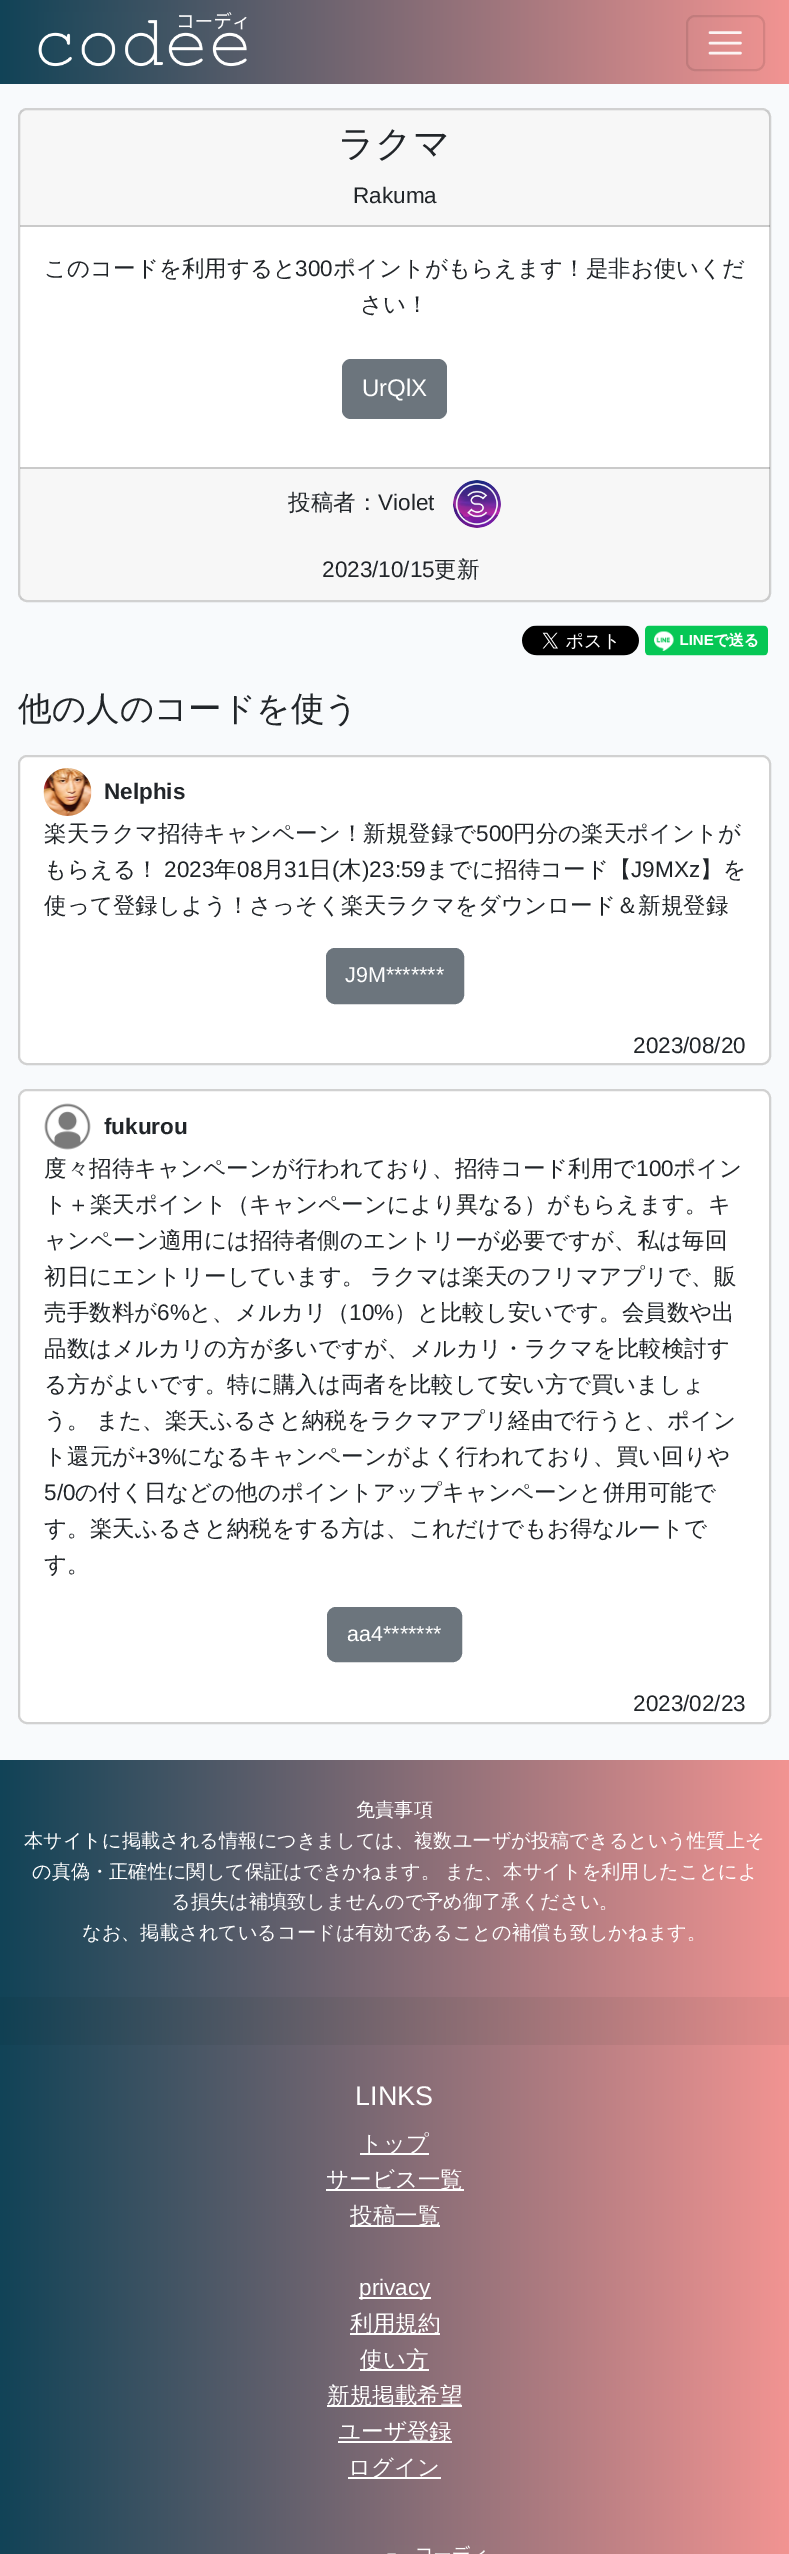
%!PS-Adobe-3.0
%%BoundingBox: 0 0 789 2554
%%LanguageLevel: 3
%%Pages: 1
%%EndComments
%%BeginProlog
/setalpha { dup .setfillconstantalpha .setstrokeconstantalpha } def
/rrect { 5 dict begin { /r /h /w /y /x } { exch def } forall
  x r add y moveto x w add y 2 copy h add r arct x w add y h add x 1 index r arct
  x y h add x y r arct x y 2 copy exch w add exch r arct closepath end } def
/drawimage { 5 dict begin { /h /w /y /x /name } { exch def } forall
  gsave x y translate w h scale
  w h 8 [w 0 0 h 0 0] name (r) file false 3 colorimage grestore end } def
%%EndProlog
%%BeginSetup
<< /PageSize [789 2554] /PageUsesTransparency true >> setpagedevice
%%EndSetup
%%Page: 1 1
0 .pushpdf14devicefilter
0 2554 translate 1 -1 scale
4 setmiterlimit
0.973 0.98 0.988 setrgbcolor
0 0 789 2554 rectfill
gsave newpath 0 0 moveto 789 0 lineto 789 84 lineto 0 84 lineto closepath clip newpath
<< /ShadingType 2 /ColorSpace /DeviceRGB /Coords [0 42 789 42] /Extend [true true] /Function << /FunctionType 2 /Domain [0 1] /C0 [0.067 0.263 0.341] /C1 [0.949 0.58 0.573] /N 1 >> >> shfill grestore
(images/1.raw) 38 12 209 55 drawimage
0.1 setalpha
0 setgray
2 setlinewidth
687 16 77 54 8 rrect stroke
0.9 setalpha
1 setgray
2.5 setlinewidth
1 setlinecap
newpath 710 32.5 moveto 740.5 32.5 lineto 710 43 moveto 740.5 43 lineto 710 53 moveto 740.5 53 lineto stroke
1 setalpha
18 108 753 494 9 rrect fill
0.18 setalpha
0 setgray
2 setlinewidth
0 setlinecap
19 109 751 492 8 rrect stroke
0.03 setalpha
20 110 750 117 rectfill
0.18 setalpha
20 225 750 2 rectfill
1 setalpha
0.424 0.459 0.49 setrgbcolor
342 359 105 60 9 rrect fill
0.03 setalpha
0 setgray
20 467 750 133 rectfill
0.18 setalpha
20 467 750 2 rectfill
1 setalpha
(images/2.raw) 453 480 48 48 drawimage
(images/3.raw) 522 625 117 31 drawimage
(images/4.raw) 645 625 123 31 drawimage
1 setgray
18 755 753 310 9 rrect fill
0.18 setalpha
0 setgray
19 756 751 308 8 rrect stroke
1 setalpha
(images/5.raw) 43 768 49 48 drawimage
0.424 0.459 0.49 setrgbcolor
327 949 136 54 8 rrect gsave fill grestore
stroke
1 setgray
18 1089 753 635 9 rrect fill
0.18 setalpha
0 setgray
19 1090 751 633 8 rrect stroke
1 setalpha
(images/6.raw) 44 1103 47 47 drawimage
0.424 0.459 0.49 setrgbcolor
328 1608 133 53 8 rrect gsave fill grestore
stroke
gsave newpath 0 1760 moveto 789 1760 lineto 789 2554 lineto 0 2554 lineto closepath clip newpath
<< /ShadingType 2 /ColorSpace /DeviceRGB /Coords [0 2366 789 2366] /Extend [true true] /Function << /FunctionType 2 /Domain [0 1] /C0 [0.067 0.263 0.341] /C1 [0.949 0.58 0.573] /N 1 >> >> shfill grestore
gsave newpath 0 1997 moveto 789 1997 lineto 789 2045 lineto 0 2045 lineto closepath clip newpath
<< /ShadingType 2 /ColorSpace /DeviceRGB /Coords [0 2366 789 2366] /Extend [true true] /Function << /FunctionType 2 /Domain [0 1] /C0 [0.063 0.251 0.325] /C1 [0.902 0.553 0.545] /N 1 >> >> shfill grestore
1 setgray
360 2153 69 2 rectfill
326 2189 138 2 rectfill
350 2225 90 2 rectfill
359 2297 72 2 rectfill
350 2333 90 2 rectfill
360 2369 69 2 rectfill
327 2405 135 2 rectfill
338 2441 114 2 rectfill
348 2477 93 2 rectfill
(images/7.raw) 387 2545 98 9 drawimage
/WenQuanYiZenHei-Medium [36.5 0 0 -36.5 0 0] selectfont
0.129 0.145 0.161 setrgbcolor
338 156 moveto (ラクマ) show
/LiberationSans-Regular [22.5 0 0 -22.5 0 0] selectfont
353 203 moveto (Rakuma) show
/WenQuanYiZenHei-Medium [22.5 0 0 -22.5 0 0] selectfont
44 276 moveto (このコードを利用すると) show
/LiberationSans-Regular [22.5 0 0 -22.5 0 0] selectfont
295 276 moveto (300) show
/WenQuanYiZenHei-Medium [22.5 0 0 -22.5 0 0] selectfont
333 276 moveto (ポイントがもらえます！是非お使いくだ) show
360 312 moveto (さい！) show
/LiberationSans-Regular [24 0 0 -24 0 0] selectfont
1 setgray
362 396 moveto (UrQlX) show
/WenQuanYiZenHei-Medium [22.5 0 0 -22.5 0 0] selectfont
0.129 0.145 0.161 setrgbcolor
288 510 moveto (投稿者：) show
/LiberationSans-Regular [22.5 0 0 -22.5 0 0] selectfont
378 510 moveto (Violet) show
322 577 moveto (2023/10/15) show
/WenQuanYiZenHei-Medium [22.5 0 0 -22.5 0 0] selectfont
434 577 moveto (更新) show
/WenQuanYiZenHei-Medium [33.6 0 0 -33.6 0 0] selectfont
18 720 moveto (他の人のコードを使う) show
/LiberationSans-Bold [22.5 0 0 -22.5 0 0] selectfont
104 799 moveto (Nelphis) show
/WenQuanYiZenHei-Medium [22.5 0 0 -22.5 0 0] selectfont
44 841 moveto (楽天ラクマ招待キャンペーン！新規登録で) show
/LiberationSans-Regular [22.5 0 0 -22.5 0 0] selectfont
476 841 moveto (500) show
/WenQuanYiZenHei-Medium [22.5 0 0 -22.5 0 0] selectfont
513 841 moveto (円分の楽天ポイントが) show
44 877 moveto (もらえる！) show
/LiberationSans-Regular [22.5 0 0 -22.5 0 0] selectfont
164 877 moveto (2023) show
/WenQuanYiZenHei-Medium [22.5 0 0 -22.5 0 0] selectfont
214 877 moveto (年) show
/LiberationSans-Regular [22.5 0 0 -22.5 0 0] selectfont
237 877 moveto (08) show
/WenQuanYiZenHei-Medium [22.5 0 0 -22.5 0 0] selectfont
262 877 moveto (月) show
/LiberationSans-Regular [22.5 0 0 -22.5 0 0] selectfont
284 877 moveto (31) show
/WenQuanYiZenHei-Medium [22.5 0 0 -22.5 0 0] selectfont
309 877 moveto (日) show
/LiberationSans-Regular [22.5 0 0 -22.5 0 0] selectfont
332 877 moveto (\() show
/WenQuanYiZenHei-Medium [22.5 0 0 -22.5 0 0] selectfont
339 877 moveto (木) show
/LiberationSans-Regular [22.5 0 0 -22.5 0 0] selectfont
362 877 moveto (\)23:59) show
/WenQuanYiZenHei-Medium [22.5 0 0 -22.5 0 0] selectfont
426 877 moveto (までに招待コード【) show
/LiberationSans-Regular [22.5 0 0 -22.5 0 0] selectfont
631 877 moveto (J9MXz) show
/WenQuanYiZenHei-Medium [22.5 0 0 -22.5 0 0] selectfont
700 877 moveto (】を) show
44 913 moveto (使って登録しよう！さっそく楽天ラクマをダウンロード＆新規登録) show
/LiberationSans-Regular [21.5 0 0 -21.5 0 0] selectfont
1 setgray
345 982 moveto (J9M*******) show
/LiberationSans-Regular [22.5 0 0 -22.5 0 0] selectfont
0.129 0.145 0.161 setrgbcolor
633 1053 moveto (2023/08/20) show
/LiberationSans-Bold [22.5 0 0 -22.5 0 0] selectfont
104 1134 moveto (fukurou) show
/WenQuanYiZenHei-Medium [22.5 0 0 -22.5 0 0] selectfont
44 1176 moveto (度々招待キャンペーンが行われており、招待コード利用で) show
/LiberationSans-Regular [22.5 0 0 -22.5 0 0] selectfont
636 1176 moveto (100) show
/WenQuanYiZenHei-Medium [22.5 0 0 -22.5 0 0] selectfont
673 1176 moveto (ポイン) show
44 1212 moveto (ト＋楽天ポイント（キャンペーンにより異なる）がもらえます。キ) show
44 1248 moveto (ャンペーン適用には招待者側のエントリーが必要ですが、私は毎回) show
44 1284 moveto (初日にエントリーしています。) show
370 1284 moveto (ラクマは楽天のフリマアプリで、販) show
44 1320 moveto (売手数料が) show
/LiberationSans-Regular [22.5 0 0 -22.5 0 0] selectfont
157 1320 moveto (6%) show
/WenQuanYiZenHei-Medium [22.5 0 0 -22.5 0 0] selectfont
189 1320 moveto (と、メルカリ（) show
/LiberationSans-Regular [22.5 0 0 -22.5 0 0] selectfont
349 1320 moveto (10%) show
/WenQuanYiZenHei-Medium [22.5 0 0 -22.5 0 0] selectfont
394 1320 moveto (）と比較し安いです。会員数や出) show
44 1356 moveto (品数はメルカリの方が多いですが、メルカリ・ラクマを比較検討す) show
44 1392 moveto (る方がよいです。特に購入は両者を比較して安い方で買いましょ) show
44 1428 moveto (う。 また、楽天ふるさと納税をラクマアプリ経由で行うと、ポイン) show
44 1464 moveto (ト還元が) show
/LiberationSans-Regular [22.5 0 0 -22.5 0 0] selectfont
135 1464 moveto (+3%) show
/WenQuanYiZenHei-Medium [22.5 0 0 -22.5 0 0] selectfont
180 1464 moveto (になるキャンペーンがよく行われており、買い回りや) show
/LiberationSans-Regular [22.5 0 0 -22.5 0 0] selectfont
44 1500 moveto (5/0) show
/WenQuanYiZenHei-Medium [22.5 0 0 -22.5 0 0] selectfont
75 1500 moveto (の付く日などの他のポイントアップキャンペーンと併用可能で) show
44 1536 moveto (す。楽天ふるさと納税をする方は、これだけでもお得なルートで) show
44 1572 moveto (す。) show
/LiberationSans-Regular [21.5 0 0 -21.5 0 0] selectfont
1 setgray
347 1641 moveto (aa4*******) show
/LiberationSans-Regular [22.5 0 0 -22.5 0 0] selectfont
0.129 0.145 0.161 setrgbcolor
633 1711 moveto (2023/02/23) show
/WenQuanYiZenHei-Medium [19.2 0 0 -19.2 0 0] selectfont
1 setgray
356 1816 moveto (免責事項) show
24 1847 moveto (本サイトに掲載される情報につきましては、複数ユーザが投稿できるという性質上そ) show
32 1878 moveto (の真偽・正確性に関して保証はできかねます。) show
445 1878 moveto (また、本サイトを利用したことによ) show
171 1908 moveto (る損失は補填致しませんので予め御了承ください。) show
82 1939 moveto (なお、掲載されているコードは有効であることの補償も致しかねます。) show
/LiberationSans-Regular [27 0 0 -27 0 0] selectfont
355 2105 moveto (LINKS) show
/WenQuanYiZenHei-Medium [22.5 0 0 -22.5 0 0] selectfont
360 2151 moveto (トップ) show
326 2187 moveto (サービス一覧) show
350 2223 moveto (投稿一覧) show
/LiberationSans-Regular [22.5 0 0 -22.5 0 0] selectfont
359 2295 moveto (privacy) show
/WenQuanYiZenHei-Medium [22.5 0 0 -22.5 0 0] selectfont
350 2331 moveto (利用規約) show
360 2367 moveto (使い方) show
327 2403 moveto (新規掲載希望) show
338 2439 moveto (ユーザ登録) show
348 2475 moveto (ログイン) show
.poppdf14devicefilter showpage
%%EOF
